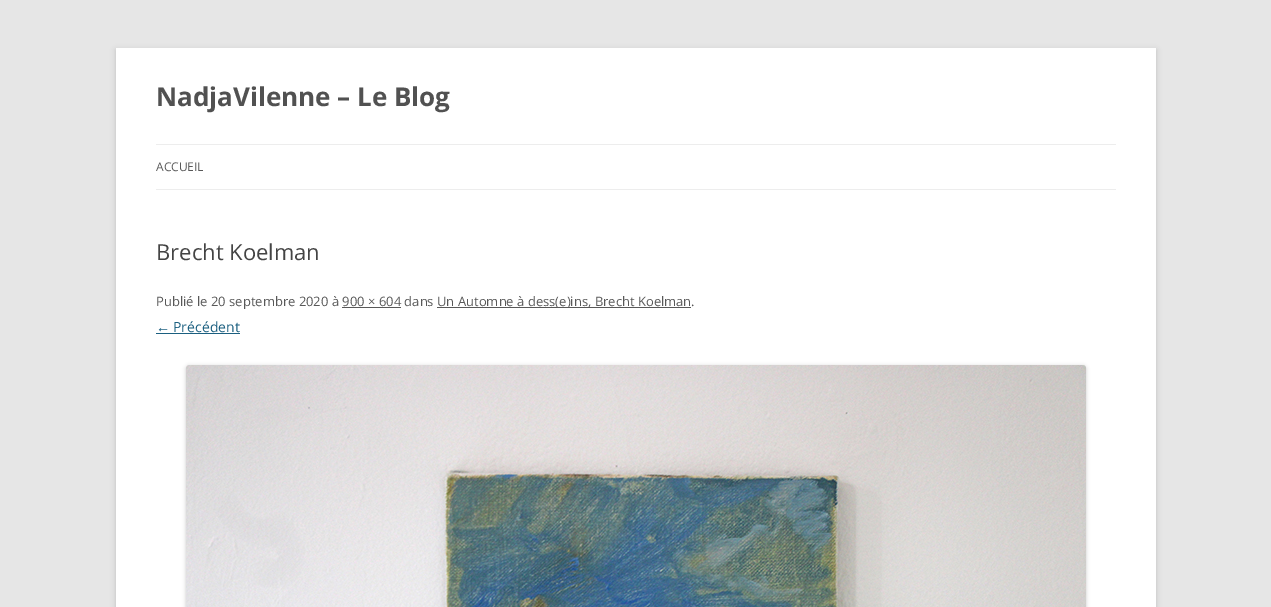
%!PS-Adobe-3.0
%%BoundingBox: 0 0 1271 607
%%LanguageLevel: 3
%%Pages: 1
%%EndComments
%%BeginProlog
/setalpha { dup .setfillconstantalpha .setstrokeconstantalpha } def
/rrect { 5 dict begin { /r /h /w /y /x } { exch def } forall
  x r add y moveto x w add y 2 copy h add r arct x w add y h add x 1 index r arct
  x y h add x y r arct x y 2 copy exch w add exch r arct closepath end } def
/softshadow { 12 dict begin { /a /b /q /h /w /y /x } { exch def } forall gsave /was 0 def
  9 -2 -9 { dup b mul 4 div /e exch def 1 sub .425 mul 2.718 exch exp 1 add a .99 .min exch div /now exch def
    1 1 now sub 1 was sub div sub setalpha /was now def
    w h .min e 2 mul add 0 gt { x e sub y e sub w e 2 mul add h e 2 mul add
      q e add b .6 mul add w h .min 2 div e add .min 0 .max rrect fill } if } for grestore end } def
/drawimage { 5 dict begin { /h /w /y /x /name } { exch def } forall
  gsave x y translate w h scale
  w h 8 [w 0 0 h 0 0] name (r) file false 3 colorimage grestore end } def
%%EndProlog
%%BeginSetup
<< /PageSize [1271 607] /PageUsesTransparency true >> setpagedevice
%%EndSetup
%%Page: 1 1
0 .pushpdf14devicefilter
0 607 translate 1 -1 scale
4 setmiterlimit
0.902 setgray
0 0 1271 607 rectfill
0.392 setgray
116 50 1040 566 0 3 0.3 softshadow
1 setgray
116 48 1040 559 rectfill
0.929 setgray
156 144 960 1 rectfill
156 189 960 1 rectfill
0.345 setgray
437 307 254 1 rectfill
342 307 59 1 rectfill
0.106 0.373 0.502 setrgbcolor
156 333 84 1 rectfill
0 setgray
186 366 900 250 3 2 0.2 softshadow
(images/1.raw) 186 365 900 242 drawimage
/OpenSans-Bold [26 0 0 -26 0 0] selectfont
0.318 setgray
156 106 moveto (NadjaVilenne – Le Blog) show
/OpenSans-Regular [12 0 0 -12 0 0] selectfont
0.345 setgray
156 171 moveto (ACCUEIL) show
/OpenSans-Regular [22 0 0 -22 0 0] selectfont
0.267 setgray
156 260 moveto (Brecht Koelman) show
/OpenSans-Regular [13 0 0 -13 0 0] selectfont
0.345 setgray
156 306 moveto (Publié le 20 septembre 2020 à 900 × 604 dans) show
437 306 moveto (Un Automne à dess\(e\)ins, Brecht Koelman.) show
/LiberationSans-Regular [14 0 0 -14 0 0] selectfont
0.106 0.373 0.502 setrgbcolor
156 332 moveto (←) show
/OpenSans-Regular [14 0 0 -14 0 0] selectfont
173 332 moveto (Précédent) show
.poppdf14devicefilter showpage
%%EOF
